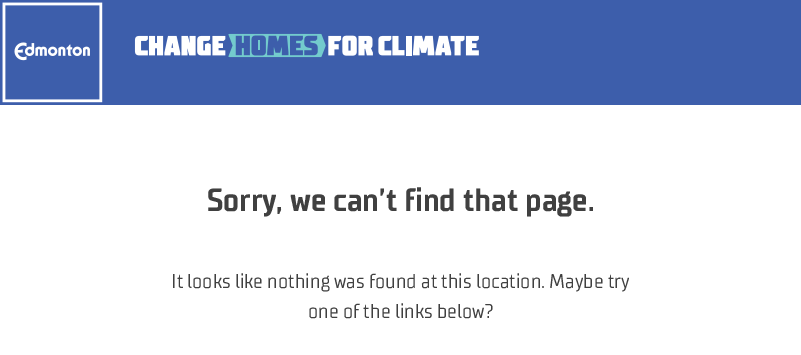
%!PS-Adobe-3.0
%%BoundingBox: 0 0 801 355
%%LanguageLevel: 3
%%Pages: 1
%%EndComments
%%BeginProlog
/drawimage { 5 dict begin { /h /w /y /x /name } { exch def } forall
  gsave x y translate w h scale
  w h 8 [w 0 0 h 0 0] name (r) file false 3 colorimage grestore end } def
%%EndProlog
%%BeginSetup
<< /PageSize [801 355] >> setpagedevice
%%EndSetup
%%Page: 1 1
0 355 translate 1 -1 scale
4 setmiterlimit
1 setgray
0 0 801 355 rectfill
0.239 0.369 0.671 setrgbcolor
0 0 801 105 rectfill
(images/1.raw) 2 2 101 101 drawimage
(images/2.raw) 134 33 345 25 drawimage
/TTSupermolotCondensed-Bold [32 0 0 -32 0 0] selectfont
0.251 setgray
207 211 moveto (Sorry, we can’t find that page.) show
/TTSupermolotCondensed-Regular [20 0 0 -20 0 0] selectfont
171 288 moveto (It looks like nothing was found at this location. Maybe try) show
308 318 moveto (one of the links below?) show
showpage
%%EOF
